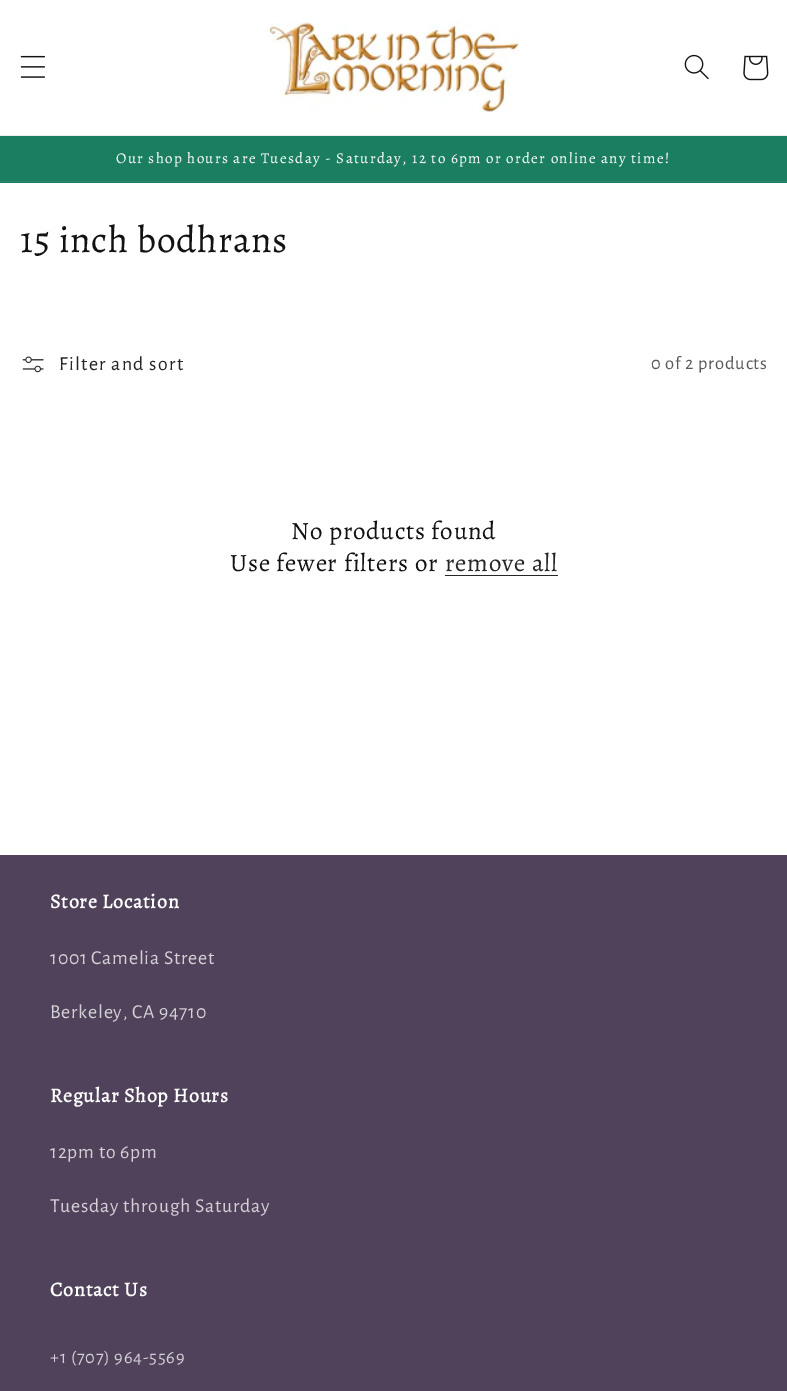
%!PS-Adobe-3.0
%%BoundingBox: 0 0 787 1391
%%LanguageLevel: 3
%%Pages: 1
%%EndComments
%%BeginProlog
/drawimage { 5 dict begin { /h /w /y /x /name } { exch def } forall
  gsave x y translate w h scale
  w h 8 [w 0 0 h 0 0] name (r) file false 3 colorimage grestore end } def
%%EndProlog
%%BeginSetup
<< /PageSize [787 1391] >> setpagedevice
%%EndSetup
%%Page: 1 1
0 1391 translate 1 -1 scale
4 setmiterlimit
1 setgray
0 0 787 1391 rectfill
0.925 setgray
0 135 787 1 rectfill
(images/1.raw) 20 55 26 23 drawimage
(images/2.raw) 268 22 251 91 drawimage
(images/3.raw) 684 54 25 26 drawimage
(images/4.raw) 743 55 26 26 drawimage
0.11 0.494 0.376 setrgbcolor
0 136 787 47 rectfill
0.18 0.533 0.427 setrgbcolor
0 181 787 1 rectfill
(images/5.raw) 22 356 22 17 drawimage
0.149 setgray
445 575 113 1 rectfill
0.314 0.259 0.357 setrgbcolor
0 855 787 536 rectfill
/Alegreya-Regular [15 0 0 -15 0 0] selectfont
1 setgray
116 163 moveto 1.3 0 (Our shop hours are Tuesday - Saturday, 12 to 6pm or order online any time!) ashow
/Alegreya-Regular [37.5 0 0 -37.5 0 0] selectfont
0.071 setgray
20 252 moveto 0.75 0 (15 inch bodhrans) ashow
/AlegreyaSans-Regular [19.75 0 0 -19.75 0 0] selectfont
0.149 setgray
59 370 moveto 1.3 0 (Filter and sort) ashow
/AlegreyaSans-Regular [18.5 0 0 -18.5 0 0] selectfont
0.349 setgray
651 369 moveto 0.75 0 (0 of 2 products) ashow
/Alegreya-Regular [25 0 0 -25 0 0] selectfont
0.071 setgray
291 539 moveto 0.75 0 (No products found) ashow
230 571 moveto 0.75 0 (Use fewer filters or) ashow
0.149 setgray
445 571 moveto 0.75 0 (remove all) ashow
/Alegreya-Bold [20 0 0 -20 0 0] selectfont
1 setgray
50 908 moveto 0.75 0 (Store Location) ashow
/AlegreyaSans-Regular [19.75 0 0 -19.75 0 0] selectfont
0.827 0.816 0.839 setrgbcolor
50 964 moveto 0.75 0 (1001 Camelia Street) ashow
50 1018 moveto 0.75 0 (Berkeley, CA 94710) ashow
/Alegreya-Bold [20 0 0 -20 0 0] selectfont
1 setgray
50 1102 moveto 0.75 0 (Regular Shop Hours) ashow
/AlegreyaSans-Regular [19.75 0 0 -19.75 0 0] selectfont
0.827 0.816 0.839 setrgbcolor
50 1158 moveto 0.75 0 (12pm to 6pm) ashow
50 1212 moveto 0.75 0 (Tuesday through Saturday) ashow
/Alegreya-Bold [20 0 0 -20 0 0] selectfont
1 setgray
50 1296 moveto 0.75 0 (Contact Us) ashow
/AlegreyaSans-Regular [18.5 0 0 -18.5 0 0] selectfont
0.827 0.816 0.839 setrgbcolor
50 1363 moveto 0.75 0 (+1 \(707\) 964-5569) ashow
showpage
%%EOF
